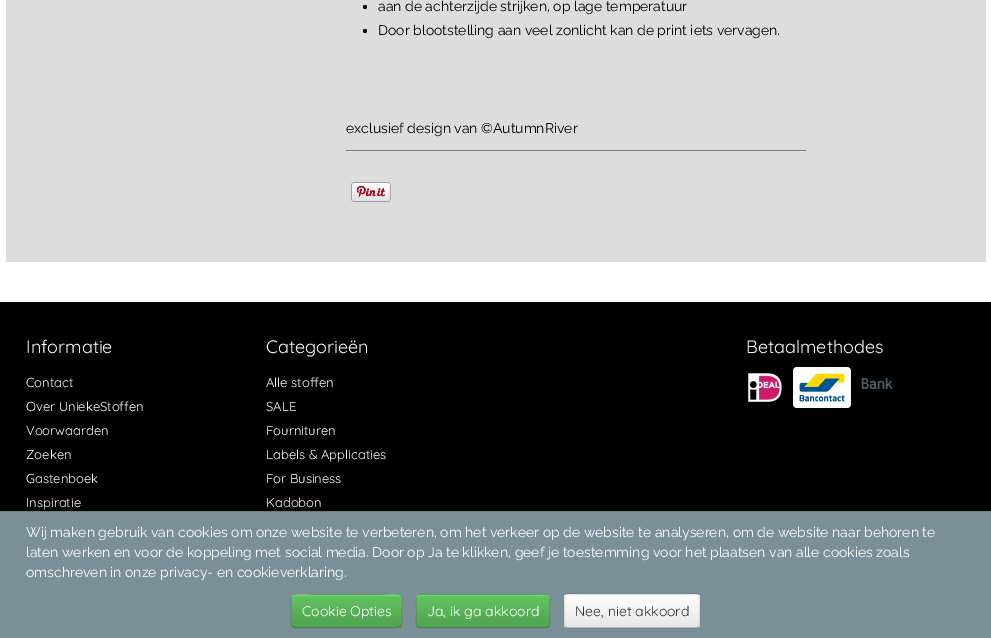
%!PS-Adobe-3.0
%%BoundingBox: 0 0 991 638
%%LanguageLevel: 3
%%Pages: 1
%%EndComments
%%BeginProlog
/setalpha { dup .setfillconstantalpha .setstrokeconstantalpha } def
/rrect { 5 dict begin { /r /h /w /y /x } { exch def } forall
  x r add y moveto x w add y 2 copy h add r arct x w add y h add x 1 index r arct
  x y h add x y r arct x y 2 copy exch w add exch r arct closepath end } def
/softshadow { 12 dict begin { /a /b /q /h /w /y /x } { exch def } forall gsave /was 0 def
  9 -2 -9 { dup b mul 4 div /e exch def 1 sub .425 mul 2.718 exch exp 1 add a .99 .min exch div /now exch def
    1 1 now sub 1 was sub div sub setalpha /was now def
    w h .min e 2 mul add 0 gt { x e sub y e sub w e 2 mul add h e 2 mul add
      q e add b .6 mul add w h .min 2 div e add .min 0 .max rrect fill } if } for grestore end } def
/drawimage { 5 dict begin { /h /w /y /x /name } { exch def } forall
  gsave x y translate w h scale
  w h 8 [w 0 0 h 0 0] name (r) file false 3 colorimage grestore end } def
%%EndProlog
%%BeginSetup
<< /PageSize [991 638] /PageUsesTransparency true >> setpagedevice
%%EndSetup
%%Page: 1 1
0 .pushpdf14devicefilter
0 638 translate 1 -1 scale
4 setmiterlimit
1 setgray
0 0 991 638 rectfill
0.867 setgray
6 0 980 262 rectfill
0.51 0.506 0.506 setrgbcolor
346 150 460 1 rectfill
0 setgray
newpath 365 7 2 0 360 arc closepath fill
newpath 365 31 2 0 360 arc closepath fill
(images/1.raw) 351 182 40 20 drawimage
0 302 991 209 rectfill
(images/2.raw) 748 373 34 29 drawimage
(images/3.raw) 793 367 58 41 drawimage
(images/4.raw) 861 377 32 13 drawimage
0 508 991 127 0 3.5 0.3 softshadow
0.478 0.561 0.596 setrgbcolor
0 512 991 126 rectfill
0.412 0.494 0.529 setrgbcolor
0 511 991 1 rectfill
0.357 0.718 0.357 setrgbcolor
291 594 111 34 4 rrect fill
gsave
291 594 111 34 4 rrect clip newpath
gsave newpath 291 595 moveto 402 595 lineto 402 627 lineto 291 627 lineto closepath clip newpath
<< /ShadingType 2 /ColorSpace /DeviceRGB /Coords [347 595 347 627] /Extend [true true] /Function << /FunctionType 2 /Domain [0 1] /C0 [0.384 0.769 0.384] /C1 [0.318 0.639 0.318] /N 1 >> >> shfill grestore
grestore
0.2 setalpha
1 setgray
newpath 295 596 moveto 398 596 lineto 400 596 401 597 401 599 curveto 401 590 383 595 381 595 curveto 312 595 lineto 310 595 292 590 292 599 curveto 292 597 293 596 295 596 curveto closepath fill
0.25 setalpha
0 setgray
newpath 400.5 626.5 moveto 398 627.5 lineto 294.5 627.5 lineto 292.5 626.5 lineto stroke
0.1 setalpha
newpath 292.5 626.5 moveto 290 624 291.5 618 291.5 615.5 curveto 291.5 590.5 287 594.5 312 594.5 curveto 381 594.5 lineto 406 594.5 401.5 590.5 401.5 615.5 curveto 401.5 618 403 624 400.5 626.5 curveto stroke
1 setalpha
0.357 0.718 0.357 setrgbcolor
416 594 134 34 4 rrect fill
gsave
416 594 134 34 4 rrect clip newpath
gsave newpath 416 595 moveto 550 595 lineto 550 627 lineto 416 627 lineto closepath clip newpath
<< /ShadingType 2 /ColorSpace /DeviceRGB /Coords [483 595 483 627] /Extend [true true] /Function << /FunctionType 2 /Domain [0 1] /C0 [0.384 0.769 0.384] /C1 [0.318 0.639 0.318] /N 1 >> >> shfill grestore
grestore
0.506 0.812 0.506 setrgbcolor
newpath 420 596 moveto 546 596 lineto 548 596 549 597 549 599 curveto 549 597 549 595 547 595 curveto 419 595 lineto 417 595 417 597 417 599 curveto 417 597 418 596 420 596 curveto closepath fill
0.25 setalpha
0 setgray
newpath 548.5 626.5 moveto 548 627 547 627.5 546 627.5 curveto 420 627.5 lineto 419 627.5 418 627 417.5 626.5 curveto stroke
0.1 setalpha
newpath 417.5 626.5 moveto 415 624 416.5 618 416.5 615.5 curveto 416.5 589.5 412 594.5 441 594.5 curveto 525 594.5 lineto 554 594.5 549.5 589.5 549.5 615.5 curveto 549.5 618 551 624 548.5 626.5 curveto stroke
1 setalpha
0.961 setgray
564 594 136 34 4 rrect fill
gsave
564 594 136 34 4 rrect clip newpath
gsave newpath 564 595 moveto 700 595 lineto 700 627 lineto 564 627 lineto closepath clip newpath
<< /ShadingType 2 /ColorSpace /DeviceRGB /Coords [632 595 632 627] /Extend [true true] /Function << /FunctionType 2 /Domain [0 1] /C0 [1 1 1] /C1 [0.902 0.902 0.902] /N 1 >> >> shfill grestore
grestore
0.25 setalpha
0 setgray
newpath 698.5 626.5 moveto 698 627 697 627.5 696 627.5 curveto 568 627.5 lineto 567 627.5 566 627 565.5 626.5 curveto stroke
0.1 setalpha
newpath 565.5 626.5 moveto 563 624 564.5 618 564.5 615.5 curveto 564.5 589 560 594.5 589.5 594.5 curveto 674.5 594.5 lineto 704 594.5 699.5 589 699.5 615.5 curveto 699.5 618 701 624 698.5 626.5 curveto stroke
/Raleway-Regular [14 0 0 -14 0 0] selectfont
1 setalpha
378 11 moveto (aan de achterzijde strijken, op lage temperatuur) show
378 35 moveto (Door blootstelling aan veel zonlicht kan de print iets vervagen.) show
346 133 moveto (exclusief design van ©AutumnRiver) show
/Quicksand-Regular [18 0 0 -18 0 0] selectfont
1 setgray
26 353 moveto (Informatie) show
/Quicksand-Regular [13 0 0 -13 0 0] selectfont
26 387 moveto (Contact) show
26 411 moveto (Over UniekeStoffen) show
26 435 moveto (Voorwaarden) show
26 459 moveto (Zoeken) show
26 483 moveto (Gastenboek) show
26 507 moveto (Inspiratie) show
/Quicksand-Regular [18 0 0 -18 0 0] selectfont
266 353 moveto (Categorieën) show
/Quicksand-Regular [13 0 0 -13 0 0] selectfont
266 387 moveto (Alle stoffen) show
266 411 moveto (SALE) show
266 435 moveto (Fournituren) show
266 459 moveto (Labels & Applicaties) show
266 483 moveto (For Business) show
266 507 moveto (Kadobon) show
/Quicksand-Regular [18 0 0 -18 0 0] selectfont
746 353 moveto (Betaalmethodes) show
/Raleway-Regular [14 0 0 -14 0 0] selectfont
26 537 moveto (Wij maken gebruik van cookies om onze website te verbeteren, om het verkeer op de website te analyseren, om de website naar behoren te) show
26 557 moveto (laten werken en voor de koppeling met social media. Door op Ja te klikken, geef je toestemming voor het plaatsen van alle cookies zoals) show
26 577 moveto (omschreven in onze privacy- en cookieverklaring.) show
/Quicksand-Regular [14 0 0 -14 0 0] selectfont
302 616 moveto (Cookie Opties) show
427 616 moveto (Ja, ik ga akkoord) show
0.2 setgray
575 616 moveto (Nee, niet akkoord) show
.poppdf14devicefilter showpage
%%EOF
